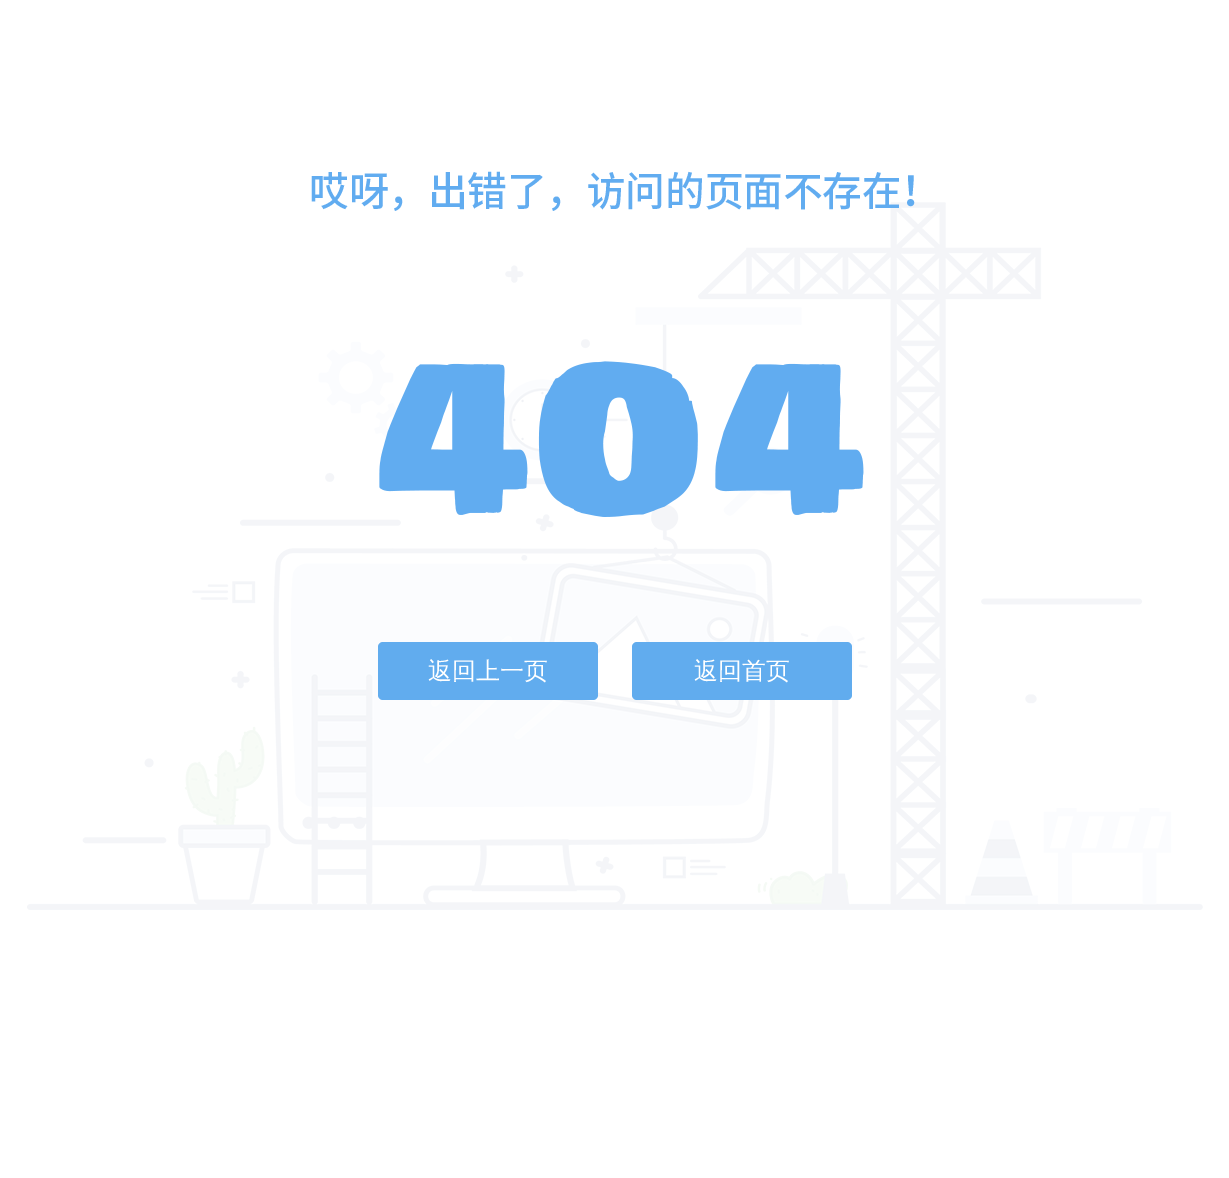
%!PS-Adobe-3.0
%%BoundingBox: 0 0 1229 1178
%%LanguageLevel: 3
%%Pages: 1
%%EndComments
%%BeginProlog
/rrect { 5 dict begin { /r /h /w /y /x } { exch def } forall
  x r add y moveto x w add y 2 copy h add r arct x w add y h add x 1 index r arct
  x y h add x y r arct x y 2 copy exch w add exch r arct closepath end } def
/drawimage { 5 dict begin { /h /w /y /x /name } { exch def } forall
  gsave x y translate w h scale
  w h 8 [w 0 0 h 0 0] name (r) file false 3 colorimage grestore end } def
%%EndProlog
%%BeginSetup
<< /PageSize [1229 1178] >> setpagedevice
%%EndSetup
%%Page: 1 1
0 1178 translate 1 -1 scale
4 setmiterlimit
1 setgray
0 0 1229 1178 rectfill
(images/1.raw) 27 202 1176 708 drawimage
(images/2.raw) 311 171 604 346 drawimage
0.38 0.675 0.933 setrgbcolor
378 642 220 58 5 rrect fill
632 642 220 58 5 rrect fill
/WenQuanYiZenHei-Medium [24 0 0 -24 0 0] selectfont
1 setgray
428 679 moveto (返回上一页) show
694 679 moveto (返回首页) show
showpage
%%EOF
